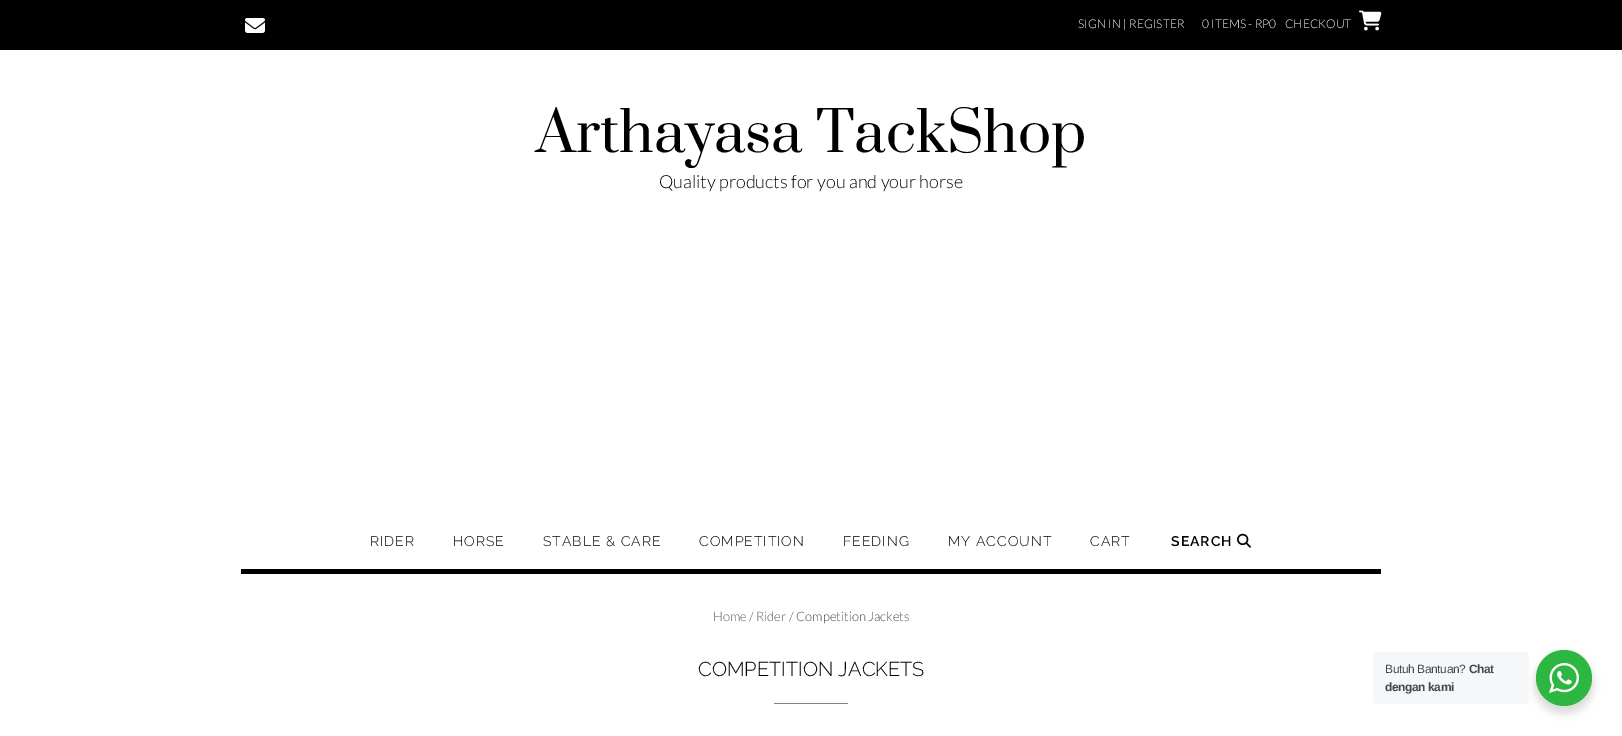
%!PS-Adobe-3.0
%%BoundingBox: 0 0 1622 736
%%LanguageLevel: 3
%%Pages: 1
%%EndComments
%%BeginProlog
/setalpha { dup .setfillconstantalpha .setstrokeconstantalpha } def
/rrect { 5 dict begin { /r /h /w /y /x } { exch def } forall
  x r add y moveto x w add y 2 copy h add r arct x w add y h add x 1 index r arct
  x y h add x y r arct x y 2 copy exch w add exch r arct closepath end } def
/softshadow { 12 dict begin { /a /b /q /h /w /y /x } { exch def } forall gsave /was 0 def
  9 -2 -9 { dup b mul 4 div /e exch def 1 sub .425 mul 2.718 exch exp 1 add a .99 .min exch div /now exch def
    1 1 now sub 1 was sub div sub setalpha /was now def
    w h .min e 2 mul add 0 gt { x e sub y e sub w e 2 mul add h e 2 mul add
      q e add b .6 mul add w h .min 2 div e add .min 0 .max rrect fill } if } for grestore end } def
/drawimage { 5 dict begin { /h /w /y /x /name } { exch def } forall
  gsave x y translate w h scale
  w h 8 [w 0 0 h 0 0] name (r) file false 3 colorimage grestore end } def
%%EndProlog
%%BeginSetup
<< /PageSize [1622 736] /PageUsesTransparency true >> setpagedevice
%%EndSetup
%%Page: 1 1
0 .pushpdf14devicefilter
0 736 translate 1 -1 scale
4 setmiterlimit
1 setgray
0 0 1622 736 rectfill
0 setgray
0 0 1622 50 rectfill
(images/1.raw) 245 18 20 15 drawimage
(images/2.raw) 1359 10 23 21 drawimage
241 569 1140 5 rectfill
(images/3.raw) 1237 533 14 15 drawimage
0.51 0.514 0.529 setrgbcolor
774 703 74 1 rectfill
0 setgray
1534 654 60 60 30 4 0.14 softshadow
0.961 0.969 0.976 setrgbcolor
1373 652 156 52 4 rrect fill
0.176 0.718 0.259 setrgbcolor
newpath 1564 678 28 0 360 arc closepath fill
(images/4.raw) 1549 663 30 30 drawimage
/Lato-Light [12 0 0 -12 0 0] selectfont
1 setgray
1078 28 moveto (SIGN IN | REGISTER) show
1202 28 moveto (0 ITEMS - RP0) show
1285 28 moveto (CHECKOUT) show
/Prata-Regular [55 0 0 -55 0 0] selectfont
0 setgray
536 152 moveto (Arthayasa TackShop) show
/Lato-Light [18 0 0 -18 0 0] selectfont
659 188 moveto (Quality products for you and your horse) show
/Raleway-Light [14 0 0 -14 0 0] selectfont
370 546 moveto 1 0 (RIDER) ashow
453 546 moveto 1 0 (HORSE) ashow
543 546 moveto 1 0 (STABLE & CARE) ashow
699 546 moveto 1 0 (COMPETITION) ashow
843 546 moveto 1 0 (FEEDING) ashow
948 546 moveto 1 0 (MY ACCOUNT) ashow
1090 546 moveto 1 0 (CART) ashow
/Raleway-SemiBold [14 0 0 -14 0 0] selectfont
1171 546 moveto 1 0 (SEARCH) ashow
/Lato-Light [13 0 0 -13 0 0] selectfont
0.392 0.392 0.42 setrgbcolor
713 621 moveto (Home) show
0.31 setgray
749 621 moveto (/) show
0.392 0.392 0.42 setrgbcolor
756 621 moveto (Rider) show
0.31 setgray
789 621 moveto (/ Competition Jackets) show
/Raleway-Light [20 0 0 -20 0 0] selectfont
0 setgray
698 676 moveto (COMPETITION JACKETS) show
/LiberationSans-Regular [12 0 0 -12 0 0] selectfont
0.263 0.278 0.306 setrgbcolor
1385 673 moveto -0.4 0 (Butuh Bantuan?) ashow
/LiberationSans-Bold [12 0 0 -12 0 0] selectfont
1469 673 moveto -0.4 0 (Chat) ashow
1385 691 moveto -0.4 0 (dengan kami) ashow
.poppdf14devicefilter showpage
%%EOF
